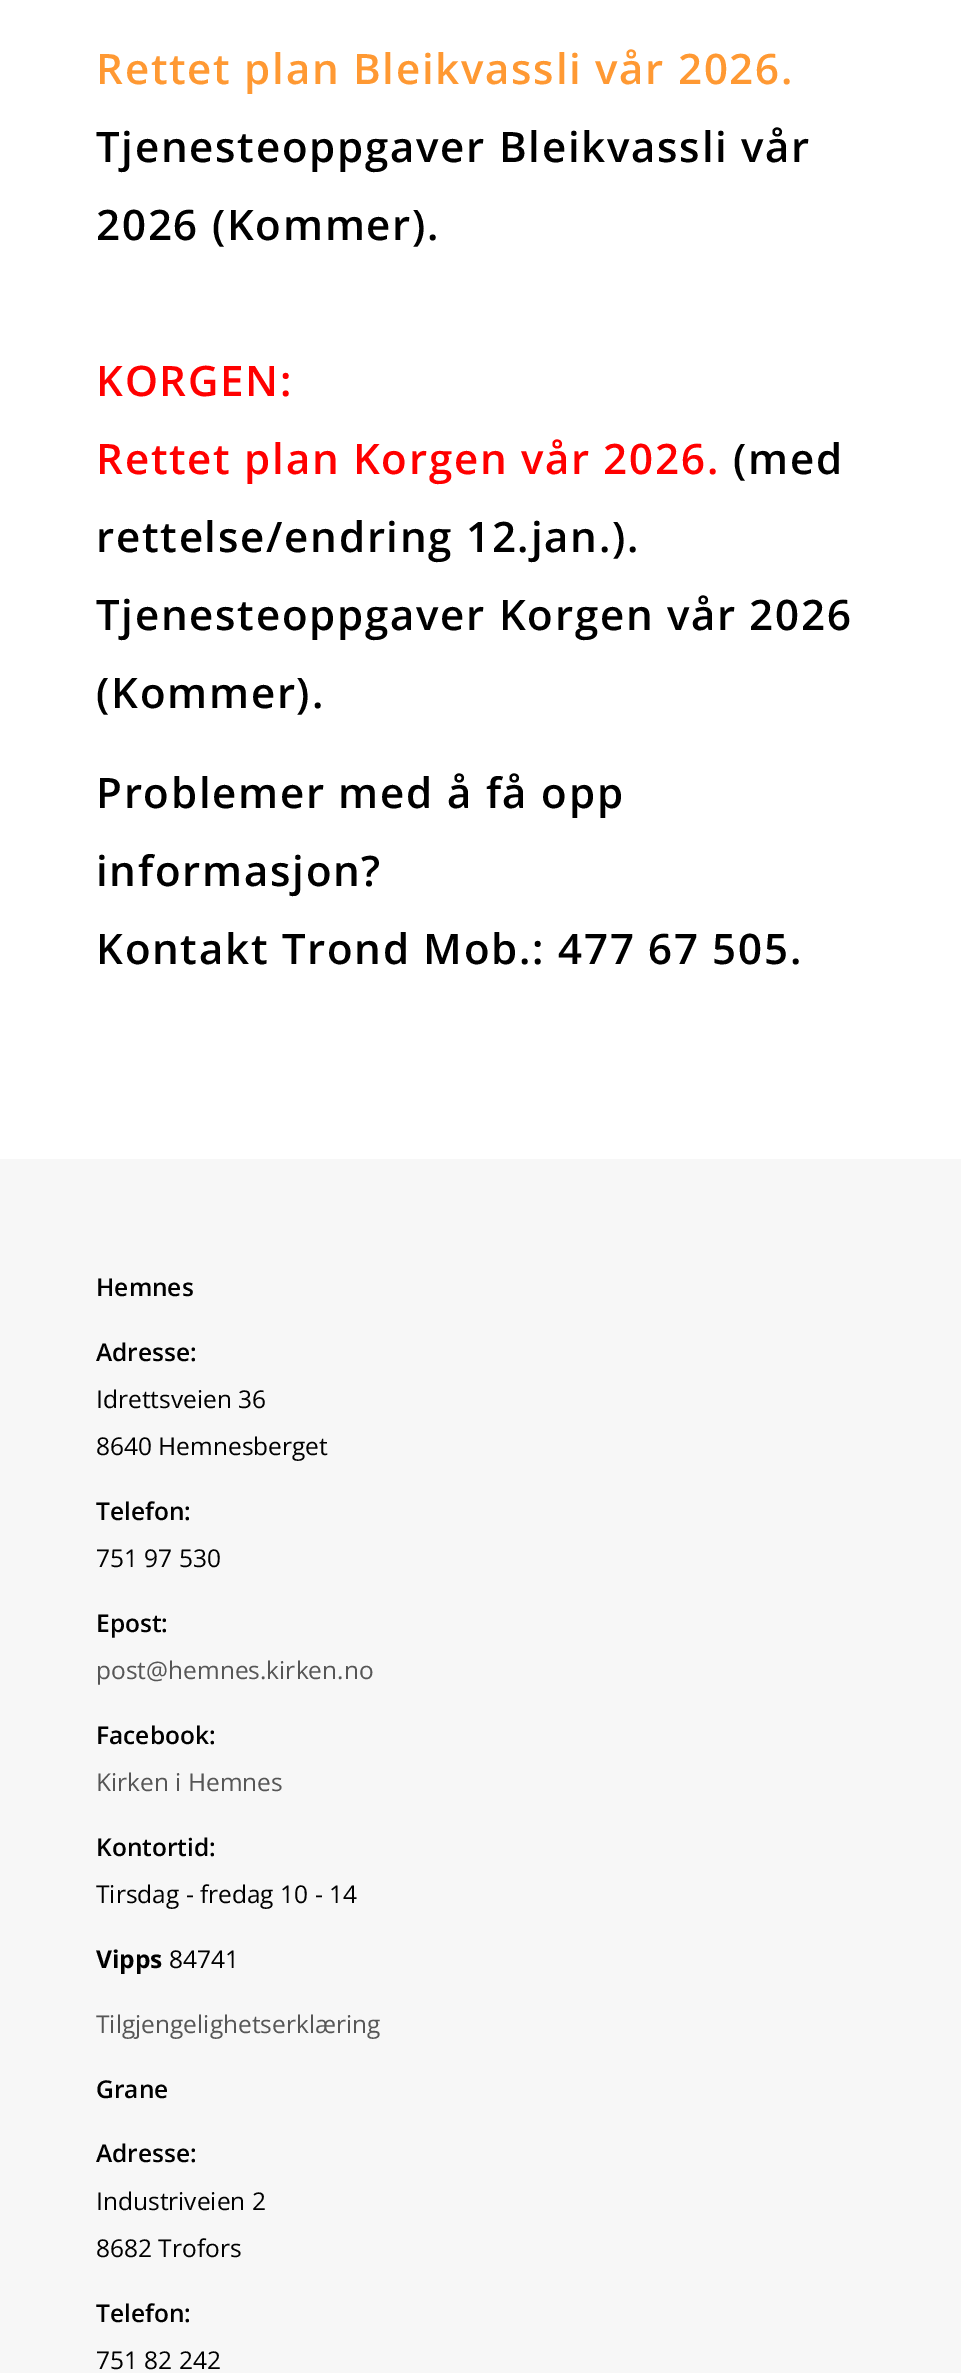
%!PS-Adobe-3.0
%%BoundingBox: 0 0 961 2373
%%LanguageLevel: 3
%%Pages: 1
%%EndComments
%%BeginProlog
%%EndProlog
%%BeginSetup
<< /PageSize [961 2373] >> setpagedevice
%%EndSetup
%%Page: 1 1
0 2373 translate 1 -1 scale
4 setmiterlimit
1 setgray
0 0 961 2373 rectfill
0.969 setgray
0 1159 961 1214 rectfill
/OpenSans-SemiBold [42 0 0 -42 0 0] selectfont
1 0.6 0.2 setrgbcolor
96 84 moveto 1.75 0 (Rettet plan Bleikvassli vår 2026.) ashow
0 setgray
96 162 moveto 1.75 0 (Tjenesteoppgaver Bleikvassli vår) ashow
96 240 moveto 1.75 0 (2026 \(Kommer\).) ashow
1 0 0 setrgbcolor
96 396 moveto 1.75 0 (KORGEN:) ashow
96 474 moveto 1.75 0 (Rettet plan Korgen vår 2026.) ashow
0 setgray
733 474 moveto 1.75 0 (\(med) ashow
96 552 moveto 1.75 0 (rettelse/endring 12.jan.\).) ashow
96 630 moveto 1.75 0 (Tjenesteoppgaver Korgen vår 2026) ashow
96 708 moveto 1.75 0 (\(Kommer\).) ashow
96 808 moveto 1.75 0 (Problemer med å få opp) ashow
96 886 moveto 1.75 0 (informasjon?) ashow
96 964 moveto 1.75 0 (Kontakt Trond Mob.: 477 67 505.) ashow
/OpenSans-SemiBold [24.5 0 0 -24.5 0 0] selectfont
96 1296 moveto (Hemnes) show
96 1361 moveto (Adresse:) show
/OpenSans-Regular [24.5 0 0 -24.5 0 0] selectfont
96 1408 moveto (Idrettsveien 36) show
96 1455 moveto (8640 Hemnesberget) show
/OpenSans-SemiBold [24.5 0 0 -24.5 0 0] selectfont
96 1520 moveto (Telefon:) show
/OpenSans-Regular [24.5 0 0 -24.5 0 0] selectfont
96 1567 moveto (751 97 530) show
/OpenSans-SemiBold [24.5 0 0 -24.5 0 0] selectfont
96 1632 moveto (Epost:) show
/OpenSans-Regular [24.5 0 0 -24.5 0 0] selectfont
0.337 setgray
96 1679 moveto (post@hemnes.kirken.no) show
/OpenSans-SemiBold [24.5 0 0 -24.5 0 0] selectfont
0 setgray
96 1744 moveto (Facebook:) show
/OpenSans-Regular [24.5 0 0 -24.5 0 0] selectfont
0.337 setgray
96 1791 moveto (Kirken i Hemnes) show
/OpenSans-SemiBold [24.5 0 0 -24.5 0 0] selectfont
0 setgray
96 1856 moveto (Kontortid:) show
/OpenSans-Regular [24.5 0 0 -24.5 0 0] selectfont
96 1903 moveto (Tirsdag - fredag 10 - 14) show
/OpenSans-Bold [24.5 0 0 -24.5 0 0] selectfont
96 1968 moveto (Vipps) show
/OpenSans-Regular [24.5 0 0 -24.5 0 0] selectfont
169 1968 moveto (84741) show
0.337 setgray
96 2033 moveto (Tilgjengelighetserklæring) show
/OpenSans-SemiBold [24.5 0 0 -24.5 0 0] selectfont
0 setgray
96 2098 moveto (Grane) show
96 2162 moveto (Adresse:) show
/OpenSans-Regular [24.5 0 0 -24.5 0 0] selectfont
96 2210 moveto (Industriveien 2) show
96 2257 moveto (8682 Trofors) show
/OpenSans-SemiBold [24.5 0 0 -24.5 0 0] selectfont
96 2322 moveto (Telefon:) show
/OpenSans-Regular [24.5 0 0 -24.5 0 0] selectfont
96 2369 moveto (751 82 242) show
showpage
%%EOF
